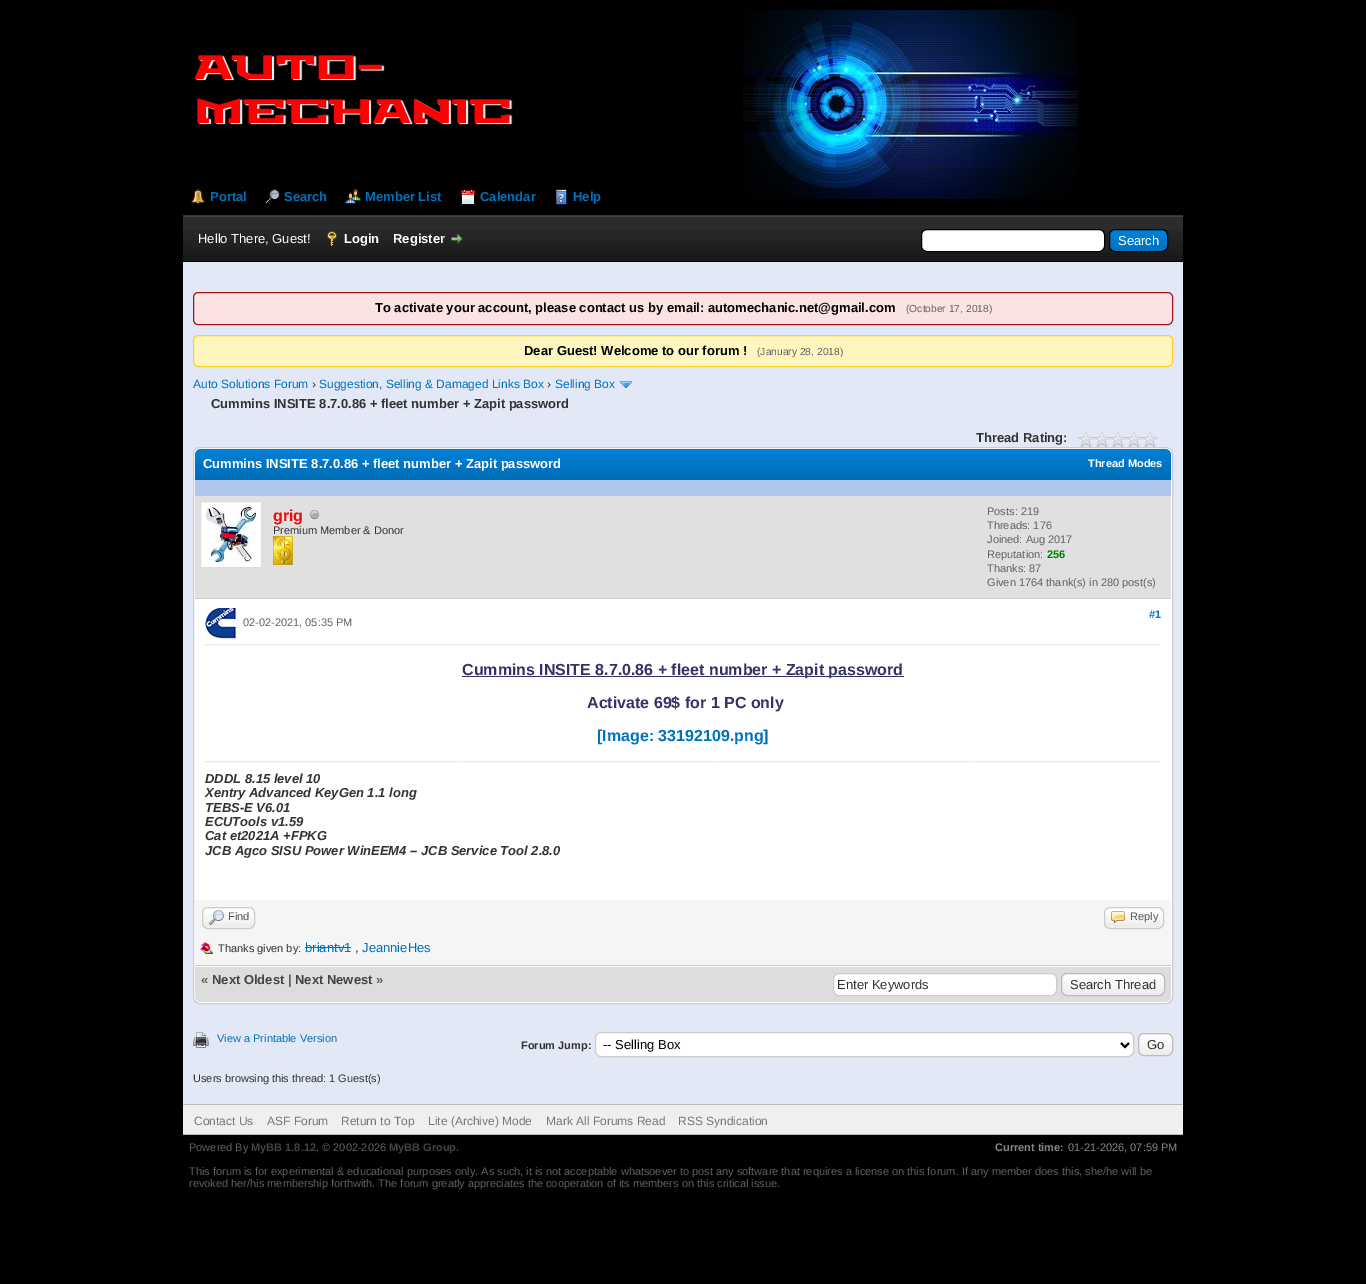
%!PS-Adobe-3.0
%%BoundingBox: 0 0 1366 1284
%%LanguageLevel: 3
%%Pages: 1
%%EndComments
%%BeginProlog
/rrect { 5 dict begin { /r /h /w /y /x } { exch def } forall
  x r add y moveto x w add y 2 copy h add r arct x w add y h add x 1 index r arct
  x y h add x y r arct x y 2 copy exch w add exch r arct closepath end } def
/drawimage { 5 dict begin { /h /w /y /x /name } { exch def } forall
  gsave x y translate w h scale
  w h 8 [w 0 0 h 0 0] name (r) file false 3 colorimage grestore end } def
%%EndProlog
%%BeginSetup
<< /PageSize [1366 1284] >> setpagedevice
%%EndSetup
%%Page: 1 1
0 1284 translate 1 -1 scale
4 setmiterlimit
0 setgray
0 0 1366 1284 rectfill
0.149 0.235 0.188 setrgbcolor
183 215 1000 1 rectfill
(images/1.raw) 194 10 884 189 drawimage
(images/2.raw) 191 189 14 16 drawimage
(images/3.raw) 265 189 15 15 drawimage
(images/4.raw) 345 189 16 15 drawimage
(images/5.raw) 461 189 14 16 drawimage
(images/6.raw) 555 189 12 16 drawimage
(images/7.raw) 183 217 1000 44 drawimage
0.267 setgray
183 216 1000 1 rectfill
(images/8.raw) 327 231 10 15 drawimage
(images/9.raw) 451 234 12 10 drawimage
1 setgray
921.5 229.5 183 22 5.5 rrect gsave fill grestore
0 setgray
stroke
(images/10.raw) 1109 230 59 22 drawimage
1109.5 229.5 58 22 5.5 rrect stroke
0.89 0.91 0.969 setrgbcolor
183 262 1000 842 rectfill
0.984 0.89 0.894 setrgbcolor
193.5 292.5 979 32 4.5 rrect gsave fill grestore
0.647 0.086 0.102 setrgbcolor
stroke
1 0.965 0.749 setrgbcolor
193.5 335.5 979 31 4.5 rrect gsave fill grestore
1 0.827 0.141 setrgbcolor
stroke
(images/11.raw) 619 381 14 7 drawimage
(images/12.raw) 1078 431 80 16 drawimage
1 setgray
193.5 447.5 979 556 6.5 rrect gsave fill grestore
0.8 setgray
stroke
(images/13.raw) 195 449 976 31 drawimage
0.694 0.776 0.937 setrgbcolor
195 480 976 16 rectfill
0.878 setgray
195 496 976 102 rectfill
0.8 setgray
195 598 976 1 rectfill
1 setgray
newpath 200.5 501.5 moveto 261.5 501.5 lineto 261.5 567.5 lineto 200.5 567.5 lineto closepath gsave fill grestore
0.867 setgray
stroke
(images/14.raw) 206 507 50 55 drawimage
(images/15.raw) 310 510 9 9 drawimage
(images/16.raw) 273 536 20 29 drawimage
[1 1] 0 setdash
newpath 205 644.5 moveto 1161 644.5 lineto stroke
(images/17.raw) 205 608 32 32 drawimage
0.2 0.2 0.4 setrgbcolor
462 676 442 1 rectfill
0.867 setgray
newpath 205 761.5 moveto 1161 761.5 lineto stroke
0.961 setgray
195 900 976 65 rectfill
0.8 setgray
195 965 976 1 rectfill
0.933 setgray
202 907 53 22 6 rrect fill
(images/18.raw) 202 908 53 15 drawimage
0.8 setgray
[] 0 setdash
202.5 907.5 52 21 5.5 rrect stroke
(images/19.raw) 209 910 15 15 drawimage
0.933 setgray
1104 907 60 22 6 rrect fill
(images/20.raw) 1104 908 60 15 drawimage
0.8 setgray
1104.5 907.5 59 21 5.5 rrect stroke
(images/21.raw) 1111 911 14 12 drawimage
(images/22.raw) 200 942 13 12 drawimage
0 0.447 0.737 setrgbcolor
305 947 46 1 rectfill
0.867 setgray
newpath 195 966 moveto 1171 966 lineto 1171 996 lineto 1171 999.5 1168.5 1002 1165 1002 curveto 201 1002 lineto 197.5 1002 195 999.5 195 996 curveto closepath fill
1 setgray
195 966 976 1 rectfill
833.5 973.5 223 22 5.5 rrect gsave fill grestore
0.8 setgray
stroke
0.933 setgray
1061 973 104 23 6 rrect fill
(images/23.raw) 1061 974 104 18 drawimage
0.733 setgray
1061.5 973.5 103 22 5.5 rrect stroke
(images/24.raw) 193 1032 16 16 drawimage
1 setgray
595.5 1032.5 538 24 5.5 rrect gsave fill grestore
0.8 setgray
stroke
0 setgray
2 setlinewidth
newpath 1121 1043 moveto 1125 1047 lineto 1129 1043 lineto stroke
(images/25.raw) 1138 1034 35 21 drawimage
0.733 setgray
1 setlinewidth
1138.5 1033.5 34 22 5.5 rrect stroke
0.937 setgray
183 1105 1000 29 rectfill
0.733 setgray
183 1104 1000 1 rectfill
183 1134 1000 1 rectfill
/LiberationSans-Bold [13 0 0 -13 0 0] selectfont
0 0.447 0.737 setrgbcolor
210 201 moveto (Portal) show
284 201 moveto (Search) show
365 201 moveto (Member List) show
480 201 moveto (Calendar) show
573 201 moveto (Help) show
/LiberationSans-Regular [13 0 0 -13 0 0] selectfont
1 setgray
198 243 moveto (Hello There, Guest!) show
/LiberationSans-Bold [13 0 0 -13 0 0] selectfont
344 243 moveto (Login) show
393 243 moveto (Register) show
/LiberationSans-Regular [13 0 0 -13 0 0] selectfont
1118 245 moveto (Search) show
/LiberationSans-Bold [13 0 0 -13 0 0] selectfont
0 setgray
375 312 moveto (To activate your account, please contact us by email: automechanic.net@gmail.com) show
/LiberationSans-Regular [10.25 0 0 -10.25 0 0] selectfont
0.388 0.38 0.38 setrgbcolor
906 312 moveto (\(October 17, 2018\)) show
/LiberationSans-Bold [13 0 0 -13 0 0] selectfont
0 setgray
524 355 moveto (Dear Guest! Welcome to our forum !) show
/LiberationSans-Regular [10.25 0 0 -10.25 0 0] selectfont
0.388 0.38 0.38 setrgbcolor
757 355 moveto (\(January 28, 2018\)) show
/LiberationSans-Regular [12 0 0 -12 0 0] selectfont
0 0.447 0.737 setrgbcolor
193 388 moveto (Auto Solutions Forum) show
0.2 setgray
312 388 moveto (›) show
0 0.447 0.737 setrgbcolor
319 388 moveto (Suggestion, Selling & Damaged Links Box) show
0.2 setgray
547 388 moveto (›) show
0 0.447 0.737 setrgbcolor
555 388 moveto (Selling Box) show
/LiberationSans-Bold [13 0 0 -13 0 0] selectfont
0.2 setgray
211 408 moveto (Cummins INSITE 8.7.0.86 + fleet number + Zapit password) show
976 442 moveto (Thread Rating:) show
1 setgray
203 468 moveto (Cummins INSITE 8.7.0.86 + fleet number + Zapit password) show
/LiberationSans-Bold [11 0 0 -11 0 0] selectfont
1088 467 moveto (Thread Modes) show
/LiberationSans-Bold [16 0 0 -16 0 0] selectfont
0.961 0.02 0.02 setrgbcolor
273 521 moveto (grig) show
/LiberationSans-Regular [11 0 0 -11 0 0] selectfont
0.2 setgray
273 534 moveto (Premium Member & Donor) show
0.388 0.38 0.38 setrgbcolor
987 515 moveto (Posts: 219) show
987 529 moveto (Threads: 176) show
987 543 moveto (Joined: Aug 2017) show
987 558 moveto (Reputation:) show
/LiberationSans-Bold [11 0 0 -11 0 0] selectfont
0 0.502 0 setrgbcolor
1047 558 moveto (256) show
/LiberationSans-Regular [11 0 0 -11 0 0] selectfont
0.388 0.38 0.38 setrgbcolor
987 572 moveto (Thanks: 87) show
987 586 moveto (Given 1764 thank\(s\) in 280 post\(s\)) show
/LiberationSans-Bold [11 0 0 -11 0 0] selectfont
0 0.447 0.737 setrgbcolor
1149 618 moveto (#1) show
/LiberationSans-Regular [11 0 0 -11 0 0] selectfont
0.388 0.38 0.38 setrgbcolor
243 626 moveto (02-02-2021, 05:35 PM) show
/LiberationSans-Bold [16 0 0 -16 0 0] selectfont
0.2 0.2 0.4 setrgbcolor
462 675 moveto (Cummins INSITE 8.7.0.86 + fleet number + Zapit password) show
587 708 moveto (Activate 69$ for 1 PC only) show
0 0.447 0.737 setrgbcolor
597 741 moveto ([Image: 33192109.png]) show
/LiberationSans-BoldItalic [13 0 0 -13 0 0] selectfont
0.2 setgray
205 783 moveto (DDDL 8.15 level 10) show
205 797 moveto (Xentry Advanced KeyGen 1.1 long) show
205 812 moveto (TEBS-E V6.01) show
205 826 moveto (ECUTools v1.59) show
205 840 moveto (Cat et2021A +FPKG) show
205 855 moveto (JCB Agco SISU Power WinEEM4 – JCB Service Tool 2.8.0) show
/LiberationSans-Regular [11 0 0 -11 0 0] selectfont
0.333 setgray
228 920 moveto (Find) show
1130 920 moveto (Reply) show
0.2 setgray
218 952 moveto (Thanks given by:) show
/LiberationSans-Regular [13 0 0 -13 0 0] selectfont
0 0.447 0.737 setrgbcolor
305 952 moveto (briantv1) show
0.2 setgray
355 952 moveto (,) show
0 0.447 0.737 setrgbcolor
362 952 moveto (JeannieHes) show
/LiberationSans-Bold [13 0 0 -13 0 0] selectfont
0.388 0.38 0.38 setrgbcolor
201 984 moveto («) show
0.267 setgray
212 984 moveto (Next Oldest) show
0.388 0.38 0.38 setrgbcolor
288 984 moveto (|) show
0.267 setgray
295 984 moveto (Next Newest) show
0.388 0.38 0.38 setrgbcolor
376 984 moveto (») show
/LiberationSans-Regular [13 0 0 -13 0 0] selectfont
0.2 setgray
837 989 moveto (Enter Keywords) show
1070 989 moveto (Search Thread) show
/LiberationSans-Regular [11 0 0 -11 0 0] selectfont
0 0.447 0.737 setrgbcolor
217 1042 moveto (View a Printable Version) show
/LiberationSans-Bold [11 0 0 -11 0 0] selectfont
0.2 setgray
521 1049 moveto (Forum Jump:) show
/LiberationSans-Regular [13 0 0 -13 0 0] selectfont
0 setgray
603 1049 moveto (-- Selling Box) show
0.2 setgray
1147 1049 moveto (Go) show
/LiberationSans-Regular [11 0 0 -11 0 0] selectfont
193 1082 moveto (Users browsing this thread: 1 Guest\(s\)) show
/LiberationSans-Regular [12 0 0 -12 0 0] selectfont
0.467 setgray
194 1125 moveto (Contact Us) show
267 1125 moveto (ASF Forum) show
341 1125 moveto (Return to Top) show
428 1125 moveto (Lite \(Archive\) Mode) show
546 1125 moveto (Mark All Forums Read) show
678 1125 moveto (RSS Syndication) show
/LiberationSans-Regular [11 0 0 -11 0 0] selectfont
0.388 0.38 0.38 setrgbcolor
189 1151 moveto (Powered By) show
/LiberationSans-Bold [11 0 0 -11 0 0] selectfont
0.267 setgray
251 1151 moveto (MyBB 1.8.12) show
/LiberationSans-Regular [11 0 0 -11 0 0] selectfont
0.388 0.38 0.38 setrgbcolor
316 1151 moveto (, © 2002-2026) show
/LiberationSans-Bold [11 0 0 -11 0 0] selectfont
0.267 setgray
389 1151 moveto (MyBB Group) show
/LiberationSans-Regular [11 0 0 -11 0 0] selectfont
0.388 0.38 0.38 setrgbcolor
456 1151 moveto (.) show
/LiberationSans-Bold [11 0 0 -11 0 0] selectfont
0.533 setgray
995 1151 moveto (Current time:) show
/LiberationSans-Regular [11 0 0 -11 0 0] selectfont
1068 1151 moveto (01-21-2026, 07:59 PM) show
0.388 0.38 0.38 setrgbcolor
189 1175 moveto (This forum is for experimental & educational purposes only. As such, it is not acceptable whatsoever to post any software that requires a license on this forum. If any member does this, she/he will be) show
189 1187 moveto (revoked her/his membership forthwith. The forum greatly appreciates the cooperation of its members on this critical issue.) show
showpage
%%EOF
